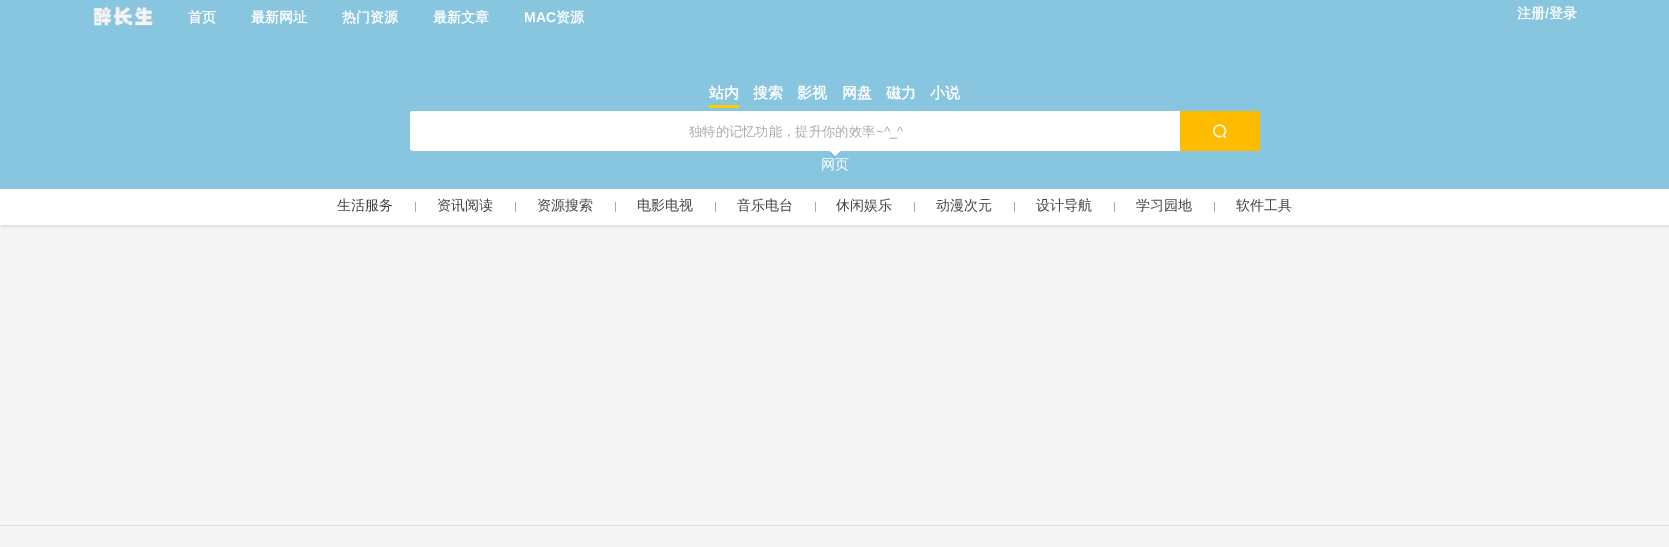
%!PS-Adobe-3.0
%%BoundingBox: 0 0 1669 547
%%LanguageLevel: 3
%%Pages: 1
%%EndComments
%%BeginProlog
/setalpha { dup .setfillconstantalpha .setstrokeconstantalpha } def
/rrect { 5 dict begin { /r /h /w /y /x } { exch def } forall
  x r add y moveto x w add y 2 copy h add r arct x w add y h add x 1 index r arct
  x y h add x y r arct x y 2 copy exch w add exch r arct closepath end } def
/softshadow { 12 dict begin { /a /b /q /h /w /y /x } { exch def } forall gsave /was 0 def
  9 -2 -9 { dup b mul 4 div /e exch def 1 sub .425 mul 2.718 exch exp 1 add a .99 .min exch div /now exch def
    1 1 now sub 1 was sub div sub setalpha /was now def
    w h .min e 2 mul add 0 gt { x e sub y e sub w e 2 mul add h e 2 mul add
      q e add b .6 mul add w h .min 2 div e add .min 0 .max rrect fill } if } for grestore end } def
/drawimage { 5 dict begin { /h /w /y /x /name } { exch def } forall
  gsave x y translate w h scale
  w h 8 [w 0 0 h 0 0] name (r) file false 3 colorimage grestore end } def
%%EndProlog
%%BeginSetup
<< /PageSize [1669 547] /PageUsesTransparency true >> setpagedevice
%%EndSetup
%%Page: 1 1
0 .pushpdf14devicefilter
0 547 translate 1 -1 scale
4 setmiterlimit
0.961 setgray
0 0 1669 547 rectfill
0.533 0.776 0.875 setrgbcolor
0 0 1669 189 rectfill
(images/1.raw) 93 6 60 20 drawimage
1 0.8 0 setrgbcolor
709 105 30 3 rectfill
1 setgray
newpath 413 111 moveto 1180 111 lineto 1180 151 lineto 413 151 lineto 411.5 151 410 149.5 410 148 curveto 410 114 lineto 410 112.5 411.5 111 413 111 curveto closepath fill
1 0.733 0 setrgbcolor
newpath 1180 111 moveto 1257 111 lineto 1258.5 111 1260 112.5 1260 114 curveto 1260 148 lineto 1260 149.5 1258.5 151 1257 151 curveto 1180 151 lineto closepath fill
(images/2.raw) 1212 124 15 15 drawimage
(images/3.raw) 830 151 10 6 drawimage
0.867 setgray
2 191 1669 36 0 1 1 softshadow
1 setgray
0 189 1669 36 rectfill
0.667 setgray
415 202 1 10 rectfill
515 202 1 10 rectfill
615 202 1 10 rectfill
715 202 1 10 rectfill
815 202 1 10 rectfill
914 202 1 10 rectfill
1014 202 1 10 rectfill
1114 202 1 10 rectfill
1214 202 1 10 rectfill
0.867 setgray
0 525 1669 1 rectfill
/WenQuanYiZenHei-Bold [14 0 0 -14 0 0] selectfont
1 setgray
188 22 moveto (首页) show
251 22 moveto (最新网址) show
342 22 moveto (热门资源) show
433 22 moveto (最新文章) show
/LiberationSans-Bold [14 0 0 -14 0 0] selectfont
524 22 moveto (MAC) show
/WenQuanYiZenHei-Bold [14 0 0 -14 0 0] selectfont
556 22 moveto (资源) show
1517 18 moveto (注册) show
/LiberationSans-Bold [14 0 0 -14 0 0] selectfont
1545 18 moveto (/) show
/WenQuanYiZenHei-Bold [14 0 0 -14 0 0] selectfont
1549 18 moveto (登录) show
/WenQuanYiZenHei-Bold [15 0 0 -15 0 0] selectfont
709 98 moveto (站内) show
753 98 moveto (搜索) show
797 98 moveto (影视) show
842 98 moveto (网盘) show
886 98 moveto (磁力) show
930 98 moveto (小说) show
/WenQuanYiZenHei-Medium [13.3 0 0 -13.3 0 0] selectfont
0.667 setgray
689 136 moveto (独特的记忆功能，提升你的效率) show
/LiberationSans-Regular [13.3 0 0 -13.3 0 0] selectfont
876 136 moveto (~^_^) show
/WenQuanYiZenHei-Medium [14 0 0 -14 0 0] selectfont
1 setgray
821 169 moveto (网页) show
0.267 setgray
337 210 moveto (生活服务) show
437 210 moveto (资讯阅读) show
537 210 moveto (资源搜索) show
637 210 moveto (电影电视) show
737 210 moveto (音乐电台) show
836 210 moveto (休闲娱乐) show
936 210 moveto (动漫次元) show
1036 210 moveto (设计导航) show
1136 210 moveto (学习园地) show
1236 210 moveto (软件工具) show
.poppdf14devicefilter showpage
%%EOF
